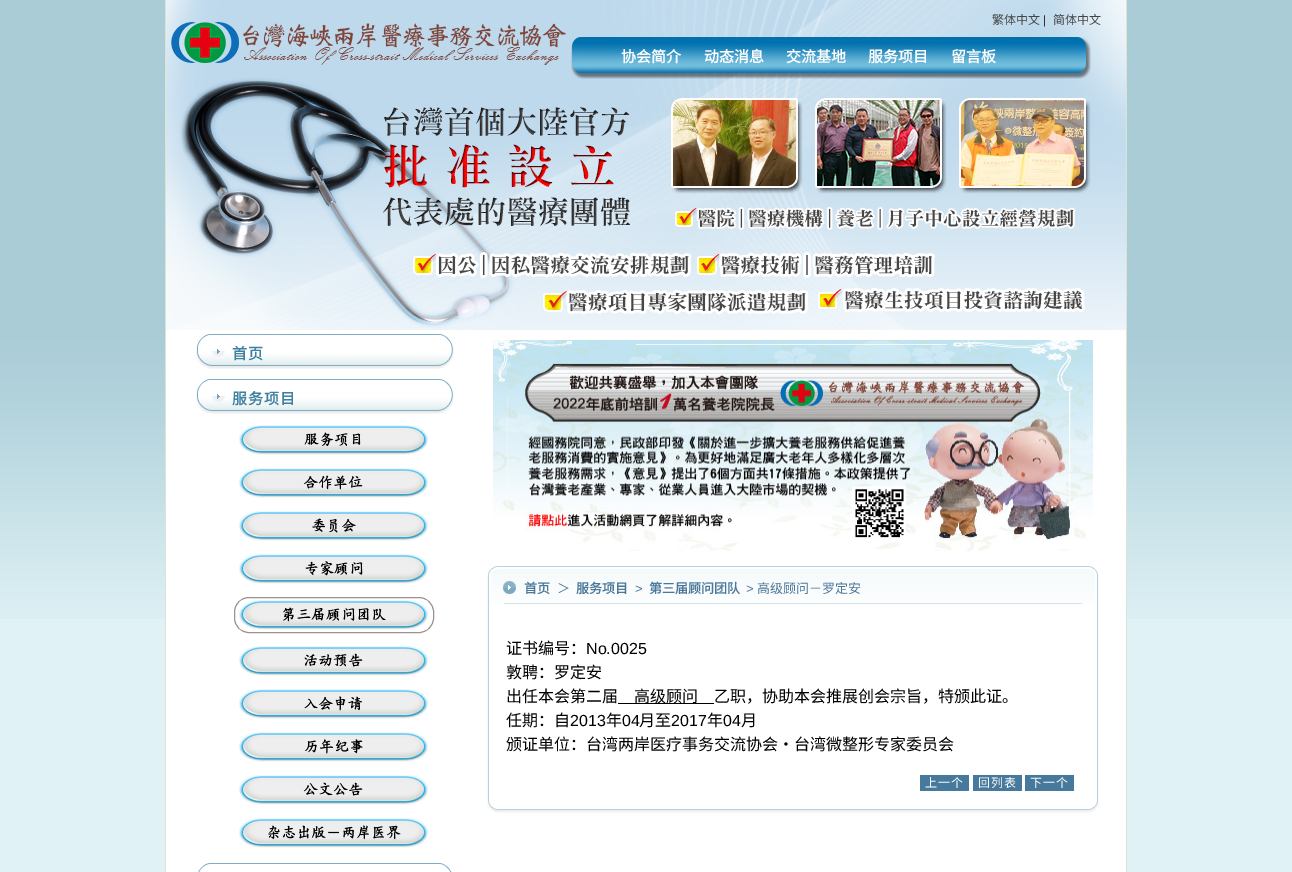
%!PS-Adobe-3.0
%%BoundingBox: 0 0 1292 872
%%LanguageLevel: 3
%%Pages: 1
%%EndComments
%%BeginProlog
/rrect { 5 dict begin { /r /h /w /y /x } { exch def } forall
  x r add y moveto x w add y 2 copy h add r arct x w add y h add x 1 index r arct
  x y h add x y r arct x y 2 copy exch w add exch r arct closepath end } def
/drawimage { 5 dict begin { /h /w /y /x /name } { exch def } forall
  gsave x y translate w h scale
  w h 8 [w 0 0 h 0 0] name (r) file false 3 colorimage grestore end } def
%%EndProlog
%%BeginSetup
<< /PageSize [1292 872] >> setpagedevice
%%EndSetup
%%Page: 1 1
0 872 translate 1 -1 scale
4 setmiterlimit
0.878 0.949 0.965 setrgbcolor
0 0 1292 872 rectfill
(images/1.raw) 0 0 1292 619 drawimage
1 setgray
166 330 960 542 rectfill
0.863 0.89 0.812 setrgbcolor
1126 0 1 872 rectfill
165 0 1 872 rectfill
(images/2.raw) 166 0 960 330 drawimage
(images/3.raw) 196 334 258 35 drawimage
(images/3.raw) 196 379 258 35 drawimage
(images/4.raw) 239 425 189 30 drawimage
(images/5.raw) 239 468 189 30 drawimage
(images/6.raw) 239 511 189 30 drawimage
(images/7.raw) 239 554 189 30 drawimage
0.62 0.569 0.569 setrgbcolor
234.5 597.5 199 35 14.5 rrect stroke
(images/8.raw) 239 600 189 30 drawimage
(images/9.raw) 239 646 189 30 drawimage
(images/10.raw) 239 689 189 30 drawimage
(images/11.raw) 239 732 189 30 drawimage
(images/12.raw) 239 775 189 30 drawimage
(images/13.raw) 239 818 189 30 drawimage
(images/14.raw) 198 863 254 9 drawimage
(images/15.raw) 493 340 600 211 drawimage
(images/16.raw) 487 566 612 40 drawimage
(images/17.raw) 487 606 612 167 drawimage
0 setgray
618 703 96 1 rectfill
(images/18.raw) 487 773 612 40 drawimage
0.275 0.475 0.608 setrgbcolor
920 775 49 16 rectfill
973 775 49 16 rectfill
1025 775 49 16 rectfill
/NotoSansCJKSC-Regular [12 0 0 -12 0 0] selectfont
0.267 setgray
992 24 moveto (繁体中文) show
/LiberationSans-Regular [12 0 0 -12 0 0] selectfont
0.196 setgray
1043 24 moveto (|) show
/NotoSansCJKSC-Regular [12 0 0 -12 0 0] selectfont
0.267 setgray
1053 24 moveto (简体中文) show
/NotoSansCJKSC-Bold [15 0 0 -15 0 0] selectfont
1 setgray
621 62 moveto (协会简介) show
704 62 moveto (动态消息) show
786 62 moveto (交流基地) show
868 62 moveto (服务项目) show
951 62 moveto (留言板) show
0.247 0.502 0.631 setrgbcolor
232 359 moveto 1 0 (首页) ashow
232 404 moveto 1 0 (服务项目) ashow
/NotoSansCJKSC-Bold [13 0 0 -13 0 0] selectfont
0.29 0.471 0.608 setrgbcolor
524 593 moveto (首页) show
/NotoSansCJKSC-Regular [13 0 0 -13 0 0] selectfont
557 593 moveto (＞) show
/NotoSansCJKSC-Bold [13 0 0 -13 0 0] selectfont
576 593 moveto (服务项目) show
/LiberationSans-Regular [13 0 0 -13 0 0] selectfont
635 593 moveto (>) show
/NotoSansCJKSC-Bold [13 0 0 -13 0 0] selectfont
649 593 moveto (第三届顾问团队) show
/LiberationSans-Regular [13 0 0 -13 0 0] selectfont
746 593 moveto (>) show
/NotoSansCJKSC-Regular [13 0 0 -13 0 0] selectfont
757 593 moveto (高级顾问－罗定安) show
/NotoSansCJKSC-Regular [16 0 0 -16 0 0] selectfont
0 setgray
506 654 moveto (证书编号：) show
/LiberationSans-Regular [16 0 0 -16 0 0] selectfont
586 654 moveto (No.0025) show
/NotoSansCJKSC-Regular [16 0 0 -16 0 0] selectfont
506 678 moveto (敦聘：罗定安) show
506 702 moveto (出任本会第二届) show
634 702 moveto (高级顾问) show
714 702 moveto (乙职，协助本会推展创会宗旨，特颁此证。) show
506 726 moveto (任期：自) show
/LiberationSans-Regular [16 0 0 -16 0 0] selectfont
570 726 moveto (2013) show
/NotoSansCJKSC-Regular [16 0 0 -16 0 0] selectfont
606 726 moveto (年) show
/LiberationSans-Regular [16 0 0 -16 0 0] selectfont
622 726 moveto (04) show
/NotoSansCJKSC-Regular [16 0 0 -16 0 0] selectfont
639 726 moveto (月至) show
/LiberationSans-Regular [16 0 0 -16 0 0] selectfont
671 726 moveto (2017) show
/NotoSansCJKSC-Regular [16 0 0 -16 0 0] selectfont
707 726 moveto (年) show
/LiberationSans-Regular [16 0 0 -16 0 0] selectfont
723 726 moveto (04) show
/NotoSansCJKSC-Regular [16 0 0 -16 0 0] selectfont
741 726 moveto (月) show
506 750 moveto (颁证单位：台湾两岸医疗事务交流协会・台湾微整形专家委员会) show
/NotoSansCJKSC-Regular [12 0 0 -12 0 0] selectfont
1 setgray
925 787 moveto 1 0 (上一个) ashow
978 787 moveto 1 0 (回列表) ashow
1030 787 moveto 1 0 (下一个) ashow
showpage
%%EOF
